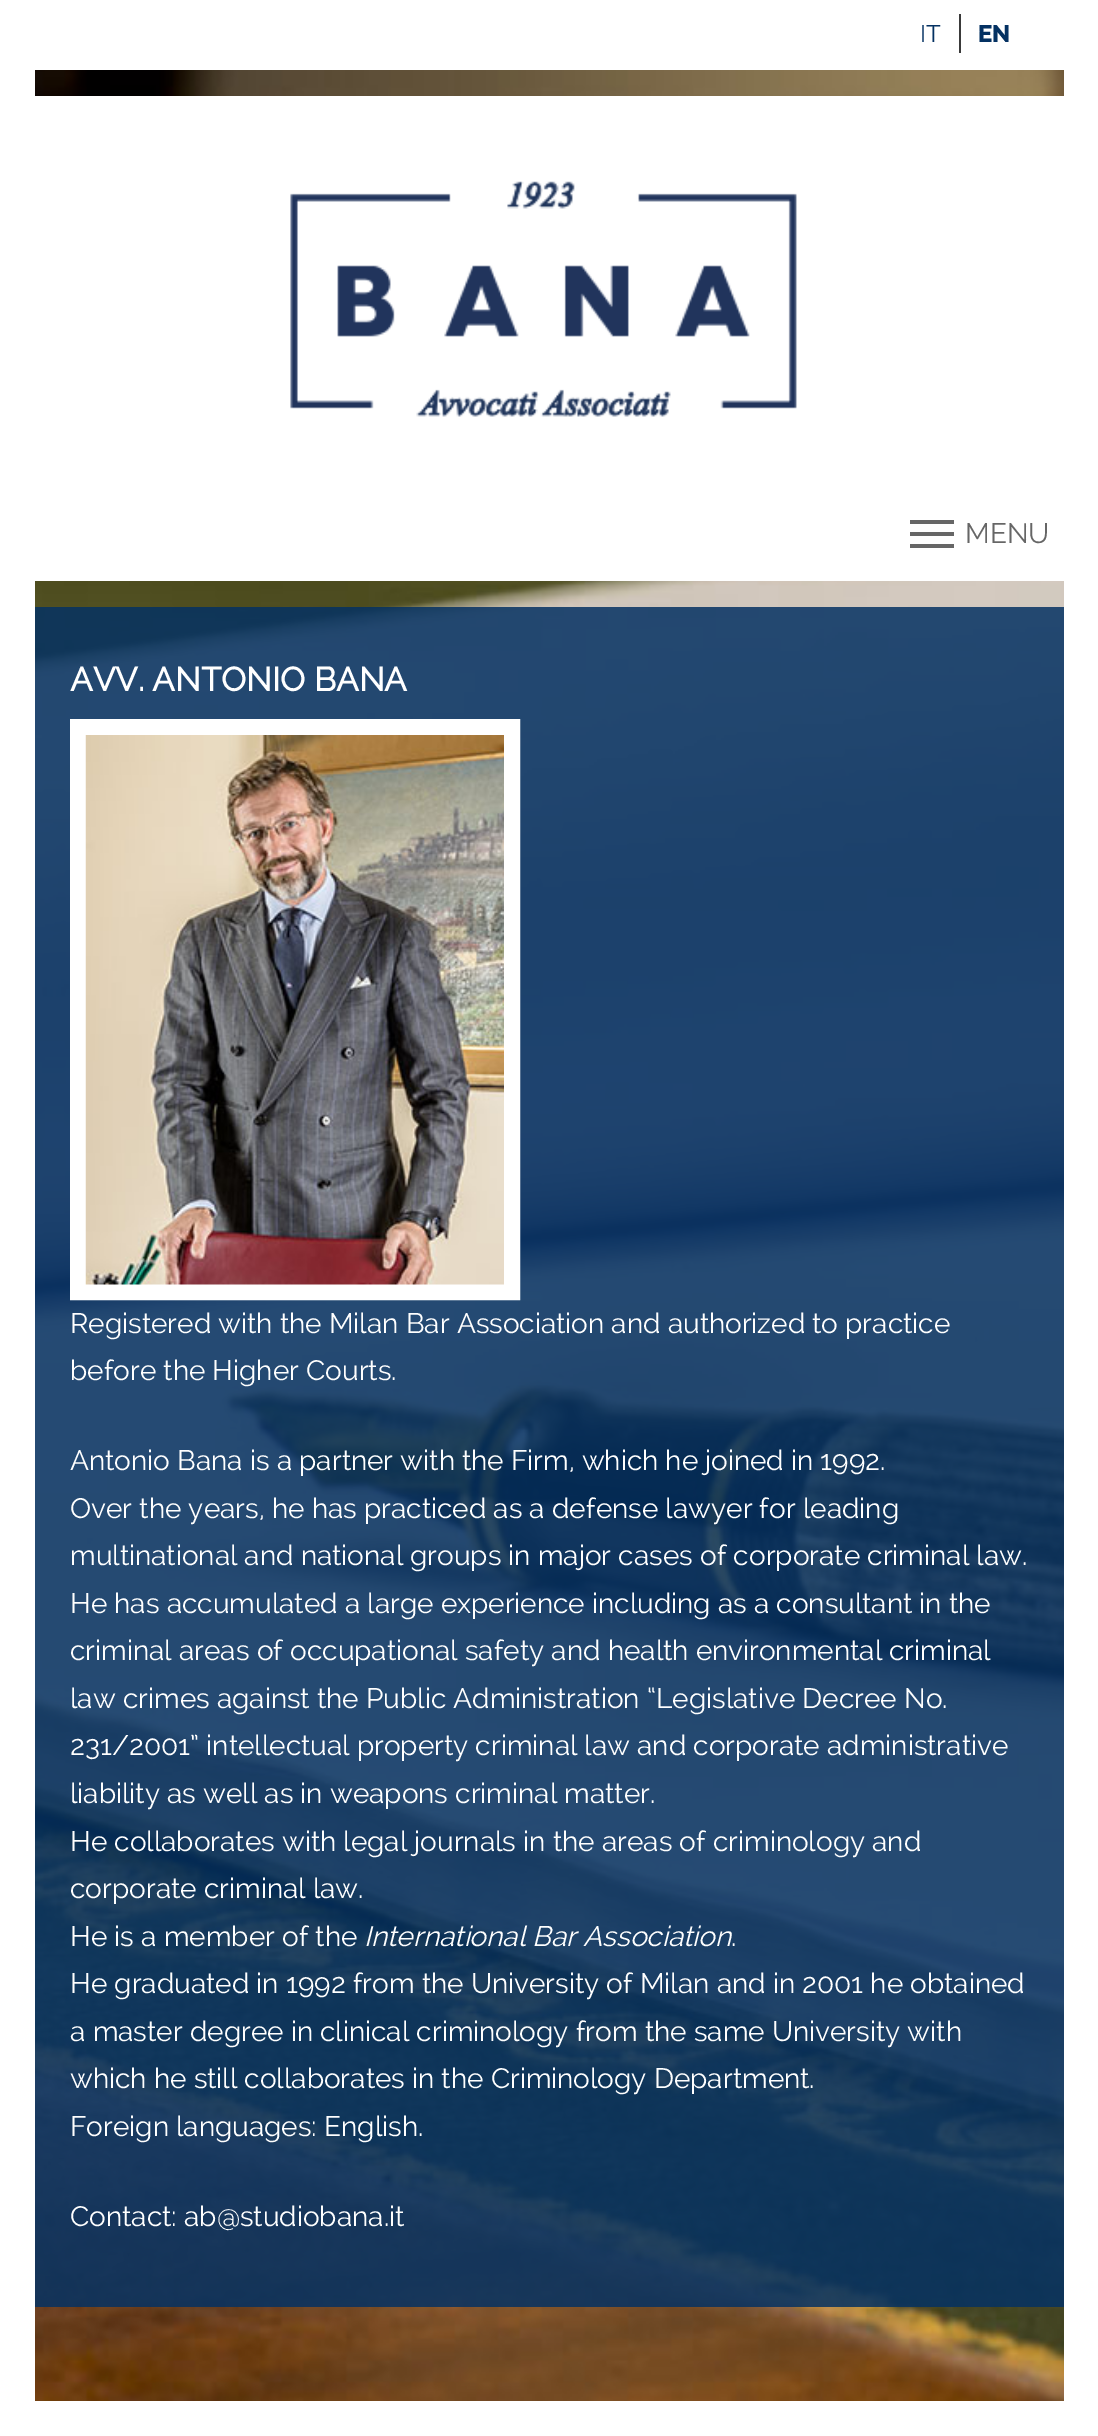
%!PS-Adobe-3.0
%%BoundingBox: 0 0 1098 2436
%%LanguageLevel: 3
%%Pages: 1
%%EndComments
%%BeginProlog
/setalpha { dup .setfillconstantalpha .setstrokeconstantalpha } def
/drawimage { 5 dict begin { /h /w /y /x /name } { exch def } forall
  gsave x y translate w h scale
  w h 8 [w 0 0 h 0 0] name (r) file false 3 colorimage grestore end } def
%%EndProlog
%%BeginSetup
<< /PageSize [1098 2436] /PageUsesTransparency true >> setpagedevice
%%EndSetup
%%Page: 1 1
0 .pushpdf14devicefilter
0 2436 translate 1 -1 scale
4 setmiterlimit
1 setgray
0 0 1098 2436 rectfill
(images/1.raw) 35 70 1029 2331 drawimage
0.227 setgray
959 14 2 39 rectfill
1 setgray
35 96 1029 485 rectfill
(images/2.raw) 290 181 507 236 drawimage
0.4 setgray
910 520 44 4 rectfill
910 532 44 4 rectfill
910 544 44 4 rectfill
0.85 setalpha
0.016 0.192 0.384 setrgbcolor
35 607 1029 1700 rectfill
1 setalpha
1 setgray
16 setlinewidth
78 727 434 565 rectstroke
(images/3.raw) 85 735 419 550 drawimage
/Raleway-Regular [24 0 0 -24 0 0] selectfont
0.016 0.192 0.384 setrgbcolor
920 42 moveto (IT) show
/Raleway-ExtraBold [24 0 0 -24 0 0] selectfont
978 42 moveto (EN) show
/Raleway-Regular [28 0 0 -28 0 0] selectfont
0.4 setgray
965 543 moveto (MENU) show
/Raleway-Bold [33.25 0 0 -33.25 0 0] selectfont
1 setgray
70 691 moveto (AVV. ANTONIO BANA) show
/Raleway-Regular [28 0 0 -28 0 0] selectfont
70 1333 moveto (Registered with the Milan Bar Association and authorized to practice) show
70 1380 moveto (before the Higher Courts.) show
70 1470 moveto (Antonio Bana is a partner with the Firm, which he joined in 1992.) show
70 1518 moveto (Over the years, he has practiced as a defense lawyer for leading) show
70 1565 moveto (multinational and national groups in major cases of corporate criminal law.) show
70 1613 moveto (He has accumulated a large experience including as a consultant in the) show
70 1660 moveto (criminal areas of occupational safety and health environmental criminal) show
70 1708 moveto (law crimes against the Public Administration “Legislative Decree No.) show
70 1755 moveto (231/2001” intellectual property criminal law and corporate administrative) show
70 1803 moveto (liability as well as in weapons criminal matter.) show
70 1851 moveto (He collaborates with legal journals in the areas of criminology and) show
70 1898 moveto (corporate criminal law.) show
70 1946 moveto (He is a member of the) show
/Raleway-Italic [28 0 0 -28 0 0] selectfont
364 1946 moveto (International Bar Association) show
/Raleway-Regular [28 0 0 -28 0 0] selectfont
731 1946 moveto (.) show
70 1993 moveto (He graduated in 1992 from the University of Milan and in 2001 he obtained) show
70 2041 moveto (a master degree in clinical criminology from the same University with) show
70 2088 moveto (which he still collaborates in the Criminology Department.) show
70 2136 moveto (Foreign languages: English.) show
70 2226 moveto (Contact: ab@studiobana.it) show
.poppdf14devicefilter showpage
%%EOF
